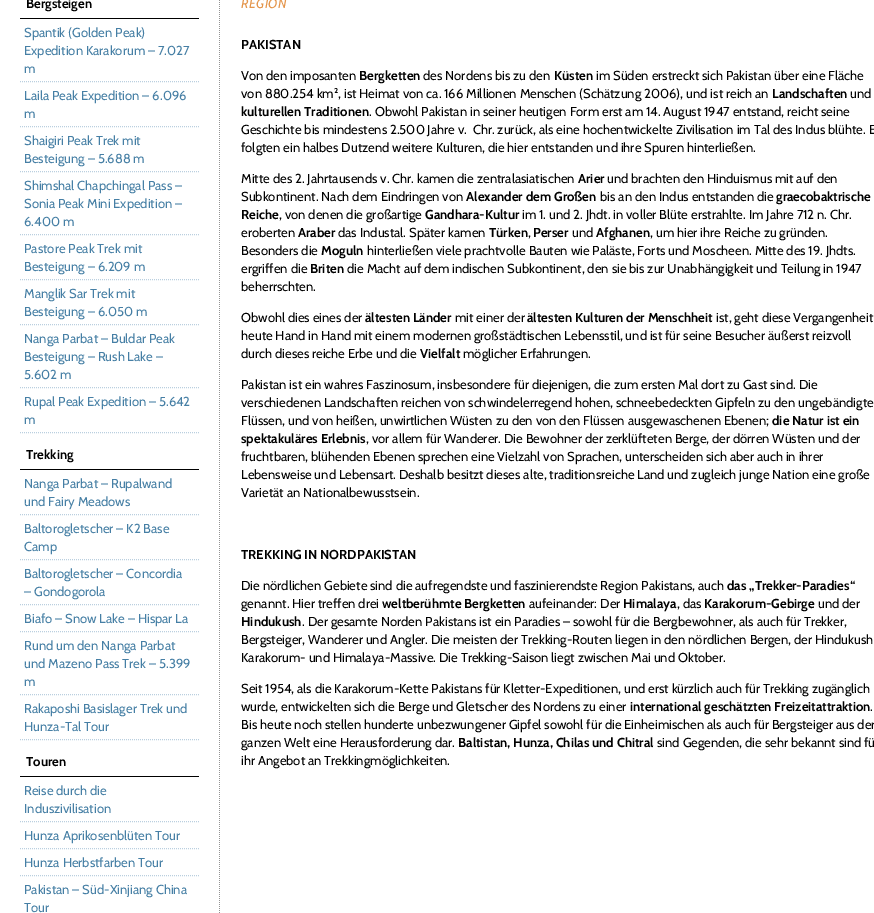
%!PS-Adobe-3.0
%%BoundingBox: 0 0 874 913
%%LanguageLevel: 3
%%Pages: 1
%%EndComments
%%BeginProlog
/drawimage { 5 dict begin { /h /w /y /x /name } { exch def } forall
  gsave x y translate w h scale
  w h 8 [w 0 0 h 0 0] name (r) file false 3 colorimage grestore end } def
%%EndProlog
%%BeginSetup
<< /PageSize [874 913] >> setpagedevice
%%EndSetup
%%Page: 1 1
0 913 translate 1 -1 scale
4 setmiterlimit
1 setgray
0 0 874 913 rectfill
(images/1.raw) 219 0 1 913 drawimage
0 setgray
20 18 179 1 rectfill
0.729 0.812 0.875 setrgbcolor
[1 1] 0 setdash
newpath 20 81.5 moveto 199 81.5 lineto stroke
newpath 20 126.5 moveto 199 126.5 lineto stroke
newpath 20 171.5 moveto 199 171.5 lineto stroke
newpath 20 234.5 moveto 199 234.5 lineto stroke
newpath 20 279.5 moveto 199 279.5 lineto stroke
newpath 20 324.5 moveto 199 324.5 lineto stroke
newpath 20 387.5 moveto 199 387.5 lineto stroke
newpath 20 432.5 moveto 199 432.5 lineto stroke
0 setgray
20 469 179 1 rectfill
0.729 0.812 0.875 setrgbcolor
newpath 20 514.5 moveto 199 514.5 lineto stroke
newpath 20 559.5 moveto 199 559.5 lineto stroke
newpath 20 604.5 moveto 199 604.5 lineto stroke
newpath 20 631.5 moveto 199 631.5 lineto stroke
newpath 20 694.5 moveto 199 694.5 lineto stroke
newpath 20 739.5 moveto 199 739.5 lineto stroke
0 setgray
20 776 179 1 rectfill
0.729 0.812 0.875 setrgbcolor
newpath 20 821.5 moveto 199 821.5 lineto stroke
newpath 20 848.5 moveto 199 848.5 lineto stroke
newpath 20 875.5 moveto 199 875.5 lineto stroke
/Cabin-Bold [13 0 0 -13 0 0] selectfont
0 setgray
26 8 moveto (Bergsteigen) show
/Cabin-Regular [13 0 0 -13 0 0] selectfont
0.275 0.498 0.647 setrgbcolor
24 37 moveto (Spantik \(Golden Peak\)) show
24 55 moveto (Expedition Karakorum – 7.027) show
24 73 moveto (m) show
24 100 moveto (Laila Peak Expedition – 6.096) show
24 118 moveto (m) show
24 145 moveto (Shaigiri Peak Trek mit) show
24 163 moveto (Besteigung – 5.688 m) show
24 190 moveto (Shimshal Chapchingal Pass –) show
24 208 moveto (Sonia Peak Mini Expedition –) show
24 226 moveto (6.400 m) show
24 253 moveto (Pastore Peak Trek mit) show
24 271 moveto (Besteigung – 6.209 m) show
24 298 moveto (Manglik Sar Trek mit) show
24 316 moveto (Besteigung – 6.050 m) show
24 343 moveto (Nanga Parbat – Buldar Peak) show
24 361 moveto (Besteigung – Rush Lake –) show
24 379 moveto (5.602 m) show
24 406 moveto (Rupal Peak Expedition – 5.642) show
24 424 moveto (m) show
/Cabin-Bold [13 0 0 -13 0 0] selectfont
0 setgray
26 459 moveto (Trekking) show
/Cabin-Regular [13 0 0 -13 0 0] selectfont
0.275 0.498 0.647 setrgbcolor
24 488 moveto (Nanga Parbat – Rupalwand) show
24 506 moveto (und Fairy Meadows) show
24 533 moveto (Baltorogletscher – K2 Base) show
24 551 moveto (Camp) show
24 578 moveto (Baltorogletscher – Concordia) show
24 596 moveto (– Gondogorola) show
24 623 moveto (Biafo – Snow Lake – Hispar La) show
24 650 moveto (Rund um den Nanga Parbat) show
24 668 moveto (und Mazeno Pass Trek – 5.399) show
24 686 moveto (m) show
24 713 moveto (Rakaposhi Basislager Trek und) show
24 731 moveto (Hunza-Tal Tour) show
/Cabin-Bold [13 0 0 -13 0 0] selectfont
0 setgray
26 766 moveto (Touren) show
/Cabin-Regular [13 0 0 -13 0 0] selectfont
0.275 0.498 0.647 setrgbcolor
24 795 moveto (Reise durch die) show
24 813 moveto (Induszivilisation) show
24 840 moveto (Hunza Aprikosenblüten Tour) show
24 867 moveto (Hunza Herbstfarben Tour) show
24 894 moveto (Pakistan – Süd-Xinjiang China) show
24 912 moveto (Tour) show
/Cabin-Italic [13 0 0 -13 0 0] selectfont
0.894 0.58 0.286 setrgbcolor
241 8 moveto 0.5 0 (REGION) ashow
/Cabin-Bold [13 0 0 -13 0 0] selectfont
0 setgray
241 49 moveto (PAKISTAN) show
/Cabin-Regular [13 0 0 -13 0 0] selectfont
241 80 moveto (Von den imposanten) show
/Cabin-Bold [13 0 0 -13 0 0] selectfont
359 80 moveto (Bergketten) show
/Cabin-Regular [13 0 0 -13 0 0] selectfont
423 80 moveto (des Nordens bis zu den) show
/Cabin-Bold [13 0 0 -13 0 0] selectfont
554 80 moveto (Küsten) show
/Cabin-Regular [13 0 0 -13 0 0] selectfont
596 80 moveto (im Süden erstreckt sich Pakistan über eine Fläche) show
241 98 moveto (von 880.254 km², ist Heimat von ca. 166 Millionen Menschen \(Schätzung 2006\), und ist reich an) show
/Cabin-Bold [13 0 0 -13 0 0] selectfont
772 98 moveto (Landschaften) show
/Cabin-Regular [13 0 0 -13 0 0] selectfont
850 98 moveto (und) show
/Cabin-Bold [13 0 0 -13 0 0] selectfont
241 116 moveto (kulturellen Traditionen) show
/Cabin-Regular [13 0 0 -13 0 0] selectfont
369 116 moveto (. Obwohl Pakistan in seiner heutigen Form erst am 14. August 1947 entstand, reicht seine) show
241 134 moveto (Geschichte bis mindestens 2.500 Jahre v.  Chr. zurück, als eine hochentwickelte Zivilisation im Tal des Indus blühte. E) show
241 152 moveto (folgten ein halbes Dutzend weitere Kulturen, die hier entstanden und ihre Spuren hinterließen.) show
241 183 moveto (Mitte des 2. Jahrtausends v. Chr. kamen die zentralasiatischen) show
/Cabin-Bold [13 0 0 -13 0 0] selectfont
578 183 moveto (Arier) show
/Cabin-Regular [13 0 0 -13 0 0] selectfont
607 183 moveto (und brachten den Hinduismus mit auf den) show
241 201 moveto (Subkontinent. Nach dem Eindringen von) show
/Cabin-Bold [13 0 0 -13 0 0] selectfont
466 201 moveto (Alexander dem Großen) show
/Cabin-Regular [13 0 0 -13 0 0] selectfont
600 201 moveto (bis an den Indus entstanden die) show
/Cabin-Bold [13 0 0 -13 0 0] selectfont
776 201 moveto (graecobaktrische) show
241 219 moveto (Reiche) show
/Cabin-Regular [13 0 0 -13 0 0] selectfont
279 219 moveto (, von denen die großartige) show
/Cabin-Bold [13 0 0 -13 0 0] selectfont
425 219 moveto (Gandhara-Kultur) show
/Cabin-Regular [13 0 0 -13 0 0] selectfont
522 219 moveto (im 1. und 2. Jhdt. in voller Blüte erstrahlte. Im Jahre 712 n. Chr.) show
241 237 moveto (eroberten) show
/Cabin-Bold [13 0 0 -13 0 0] selectfont
298 237 moveto (Araber) show
/Cabin-Regular [13 0 0 -13 0 0] selectfont
338 237 moveto (das Industal. Später kamen) show
/Cabin-Bold [13 0 0 -13 0 0] selectfont
489 237 moveto (Türken) show
/Cabin-Regular [13 0 0 -13 0 0] selectfont
528 237 moveto (,) show
/Cabin-Bold [13 0 0 -13 0 0] selectfont
533 237 moveto (Perser) show
/Cabin-Regular [13 0 0 -13 0 0] selectfont
572 237 moveto (und) show
/Cabin-Bold [13 0 0 -13 0 0] selectfont
596 237 moveto (Afghanen) show
/Cabin-Regular [13 0 0 -13 0 0] selectfont
650 237 moveto (, um hier ihre Reiche zu gründen.) show
241 255 moveto (Besonders die) show
/Cabin-Bold [13 0 0 -13 0 0] selectfont
321 255 moveto (Moguln) show
/Cabin-Regular [13 0 0 -13 0 0] selectfont
367 255 moveto (hinterließen viele prachtvolle Bauten wie Paläste, Forts und Moscheen. Mitte des 19. Jhdts.) show
241 273 moveto (ergriffen die) show
/Cabin-Bold [13 0 0 -13 0 0] selectfont
310 273 moveto (Briten) show
/Cabin-Regular [13 0 0 -13 0 0] selectfont
347 273 moveto (die Macht auf dem indischen Subkontinent, den sie bis zur Unabhängigkeit und Teilung in 1947) show
241 291 moveto (beherrschten.) show
241 322 moveto (Obwohl dies eines der) show
/Cabin-Bold [13 0 0 -13 0 0] selectfont
365 322 moveto (ältesten Länder) show
/Cabin-Regular [13 0 0 -13 0 0] selectfont
455 322 moveto (mit einer der) show
/Cabin-Bold [13 0 0 -13 0 0] selectfont
527 322 moveto (ältesten Kulturen der Menschheit) show
/Cabin-Regular [13 0 0 -13 0 0] selectfont
716 322 moveto (ist, geht diese Vergangenheit) show
241 340 moveto (heute Hand in Hand mit einem modernen großstädtischen Lebensstil, und ist für seine Besucher äußerst reizvoll) show
241 358 moveto (durch dieses reiche Erbe und die) show
/Cabin-Bold [13 0 0 -13 0 0] selectfont
420 358 moveto (Vielfalt) show
/Cabin-Regular [13 0 0 -13 0 0] selectfont
463 358 moveto (möglicher Erfahrungen.) show
241 389 moveto (Pakistan ist ein wahres Faszinosum, insbesondere für diejenigen, die zum ersten Mal dort zu Gast sind. Die) show
241 407 moveto (verschiedenen Landschaften reichen von schwindelerregend hohen, schneebedeckten Gipfeln zu den ungebändigte) show
241 425 moveto (Flüssen, und von heißen, unwirtlichen Wüsten zu den von den Flüssen ausgewaschenen Ebenen;) show
/Cabin-Bold [13 0 0 -13 0 0] selectfont
772 425 moveto (die Natur ist ein) show
241 443 moveto (spektakuläres Erlebnis) show
/Cabin-Regular [13 0 0 -13 0 0] selectfont
366 443 moveto (, vor allem für Wanderer. Die Bewohner der zerklüfteten Berge, der dörren Wüsten und der) show
241 461 moveto (fruchtbaren, blühenden Ebenen sprechen eine Vielzahl von Sprachen, unterscheiden sich aber auch in ihrer) show
241 479 moveto (Lebensweise und Lebensart. Deshalb besitzt dieses alte, traditionsreiche Land und zugleich junge Nation eine große) show
241 497 moveto (Varietät an Nationalbewusstsein.) show
/Cabin-Bold [13 0 0 -13 0 0] selectfont
241 559 moveto (TREKKING IN NORDPAKISTAN) show
/Cabin-Regular [13 0 0 -13 0 0] selectfont
241 590 moveto (Die nördlichen Gebiete sind die aufregendste und faszinierendste Region Pakistans, auch) show
/Cabin-Bold [13 0 0 -13 0 0] selectfont
727 590 moveto (das „Trekker-Paradies“) show
/Cabin-Regular [13 0 0 -13 0 0] selectfont
241 608 moveto (genannt. Hier treffen drei) show
/Cabin-Bold [13 0 0 -13 0 0] selectfont
382 608 moveto (weltberühmte Bergketten) show
/Cabin-Regular [13 0 0 -13 0 0] selectfont
529 608 moveto (aufeinander: Der) show
/Cabin-Bold [13 0 0 -13 0 0] selectfont
623 608 moveto (Himalaya) show
/Cabin-Regular [13 0 0 -13 0 0] selectfont
677 608 moveto (, das) show
/Cabin-Bold [13 0 0 -13 0 0] selectfont
704 608 moveto (Karakorum-Gebirge) show
/Cabin-Regular [13 0 0 -13 0 0] selectfont
818 608 moveto (und der) show
/Cabin-Bold [13 0 0 -13 0 0] selectfont
241 626 moveto (Hindukush) show
/Cabin-Regular [13 0 0 -13 0 0] selectfont
302 626 moveto (. Der gesamte Norden Pakistans ist ein Paradies – sowohl für die Bergbewohner, als auch für Trekker,) show
241 644 moveto (Bergsteiger, Wanderer und Angler. Die meisten der Trekking-Routen liegen in den nördlichen Bergen, der Hindukush) show
241 662 moveto (Karakorum- und Himalaya-Massive. Die Trekking-Saison liegt zwischen Mai und Oktober.) show
241 693 moveto (Seit 1954, als die Karakorum-Kette Pakistans für Kletter-Expeditionen, und erst kürzlich auch für Trekking zugänglich) show
241 711 moveto (wurde, entwickelten sich die Berge und Gletscher des Nordens zu einer) show
/Cabin-Bold [13 0 0 -13 0 0] selectfont
630 711 moveto (international geschätzten Freizeitattraktion) show
/Cabin-Regular [13 0 0 -13 0 0] selectfont
870 711 moveto (.) show
241 729 moveto (Bis heute noch stellen hunderte unbezwungener Gipfel sowohl für die Einheimischen als auch für Bergsteiger aus der) show
241 747 moveto (ganzen Welt eine Herausforderung dar.) show
/Cabin-Bold [13 0 0 -13 0 0] selectfont
458 747 moveto (Baltistan, Hunza, Chilas und Chitral) show
/Cabin-Regular [13 0 0 -13 0 0] selectfont
657 747 moveto (sind Gegenden, die sehr bekannt sind fü) show
241 765 moveto (ihr Angebot an Trekkingmöglichkeiten.) show
showpage
%%EOF
